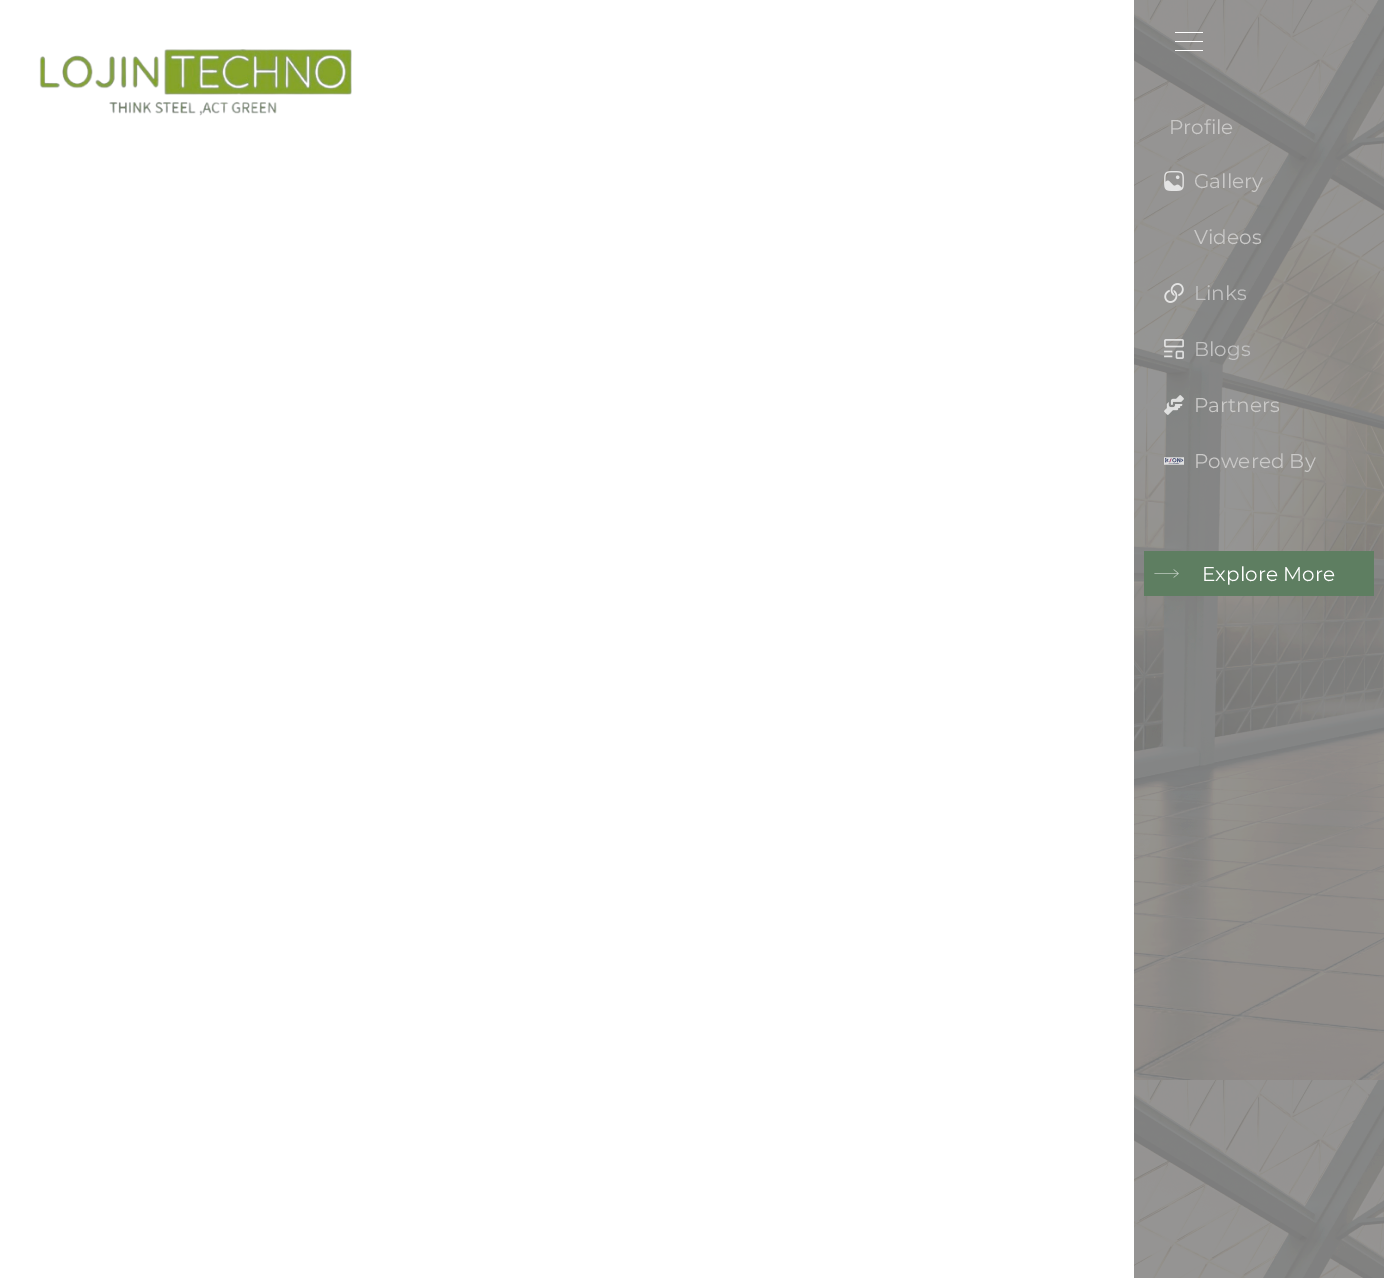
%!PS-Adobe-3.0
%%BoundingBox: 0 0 1384 1278
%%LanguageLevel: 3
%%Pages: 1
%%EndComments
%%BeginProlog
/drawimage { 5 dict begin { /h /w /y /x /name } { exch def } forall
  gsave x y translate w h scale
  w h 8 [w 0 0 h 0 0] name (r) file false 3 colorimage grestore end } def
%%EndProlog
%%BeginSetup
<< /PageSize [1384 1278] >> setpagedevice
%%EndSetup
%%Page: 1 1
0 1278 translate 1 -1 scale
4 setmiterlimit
1 setgray
0 0 1384 1278 rectfill
(images/1.raw) 39 49 313 67 drawimage
0.514 setgray
1134 0 250 1278 rectfill
(images/2.raw) 1134 0 250 1278 drawimage
1 setgray
1175 32 28 1 rectfill
1175 50 28 1 rectfill
1175 41 28 1 rectfill
(images/3.raw) 1164 171 20 20 drawimage
(images/4.raw) 1164 283 20 20 drawimage
(images/5.raw) 1164 339 20 20 drawimage
(images/6.raw) 1164 395 20 20 drawimage
(images/7.raw) 1164 457 20 8 drawimage
0.369 0.494 0.38 setrgbcolor
1144 551 230 45 rectfill
(images/8.raw) 1154 569 25 9 drawimage
/Montserrat-Regular [20 0 0 -20 0 0] selectfont
0.792 0.788 0.784 setrgbcolor
1169 134 moveto (Profile) show
1194 188 moveto (Gallery) show
1194 244 moveto (Videos) show
0.765 setgray
1194 300 moveto (Links) show
1194 356 moveto (Blogs) show
0.792 0.788 0.784 setrgbcolor
1194 412 moveto (Partners) show
1194 468 moveto (Powered By) show
1 setgray
1202 581 moveto (Explore More) show
showpage
%%EOF
